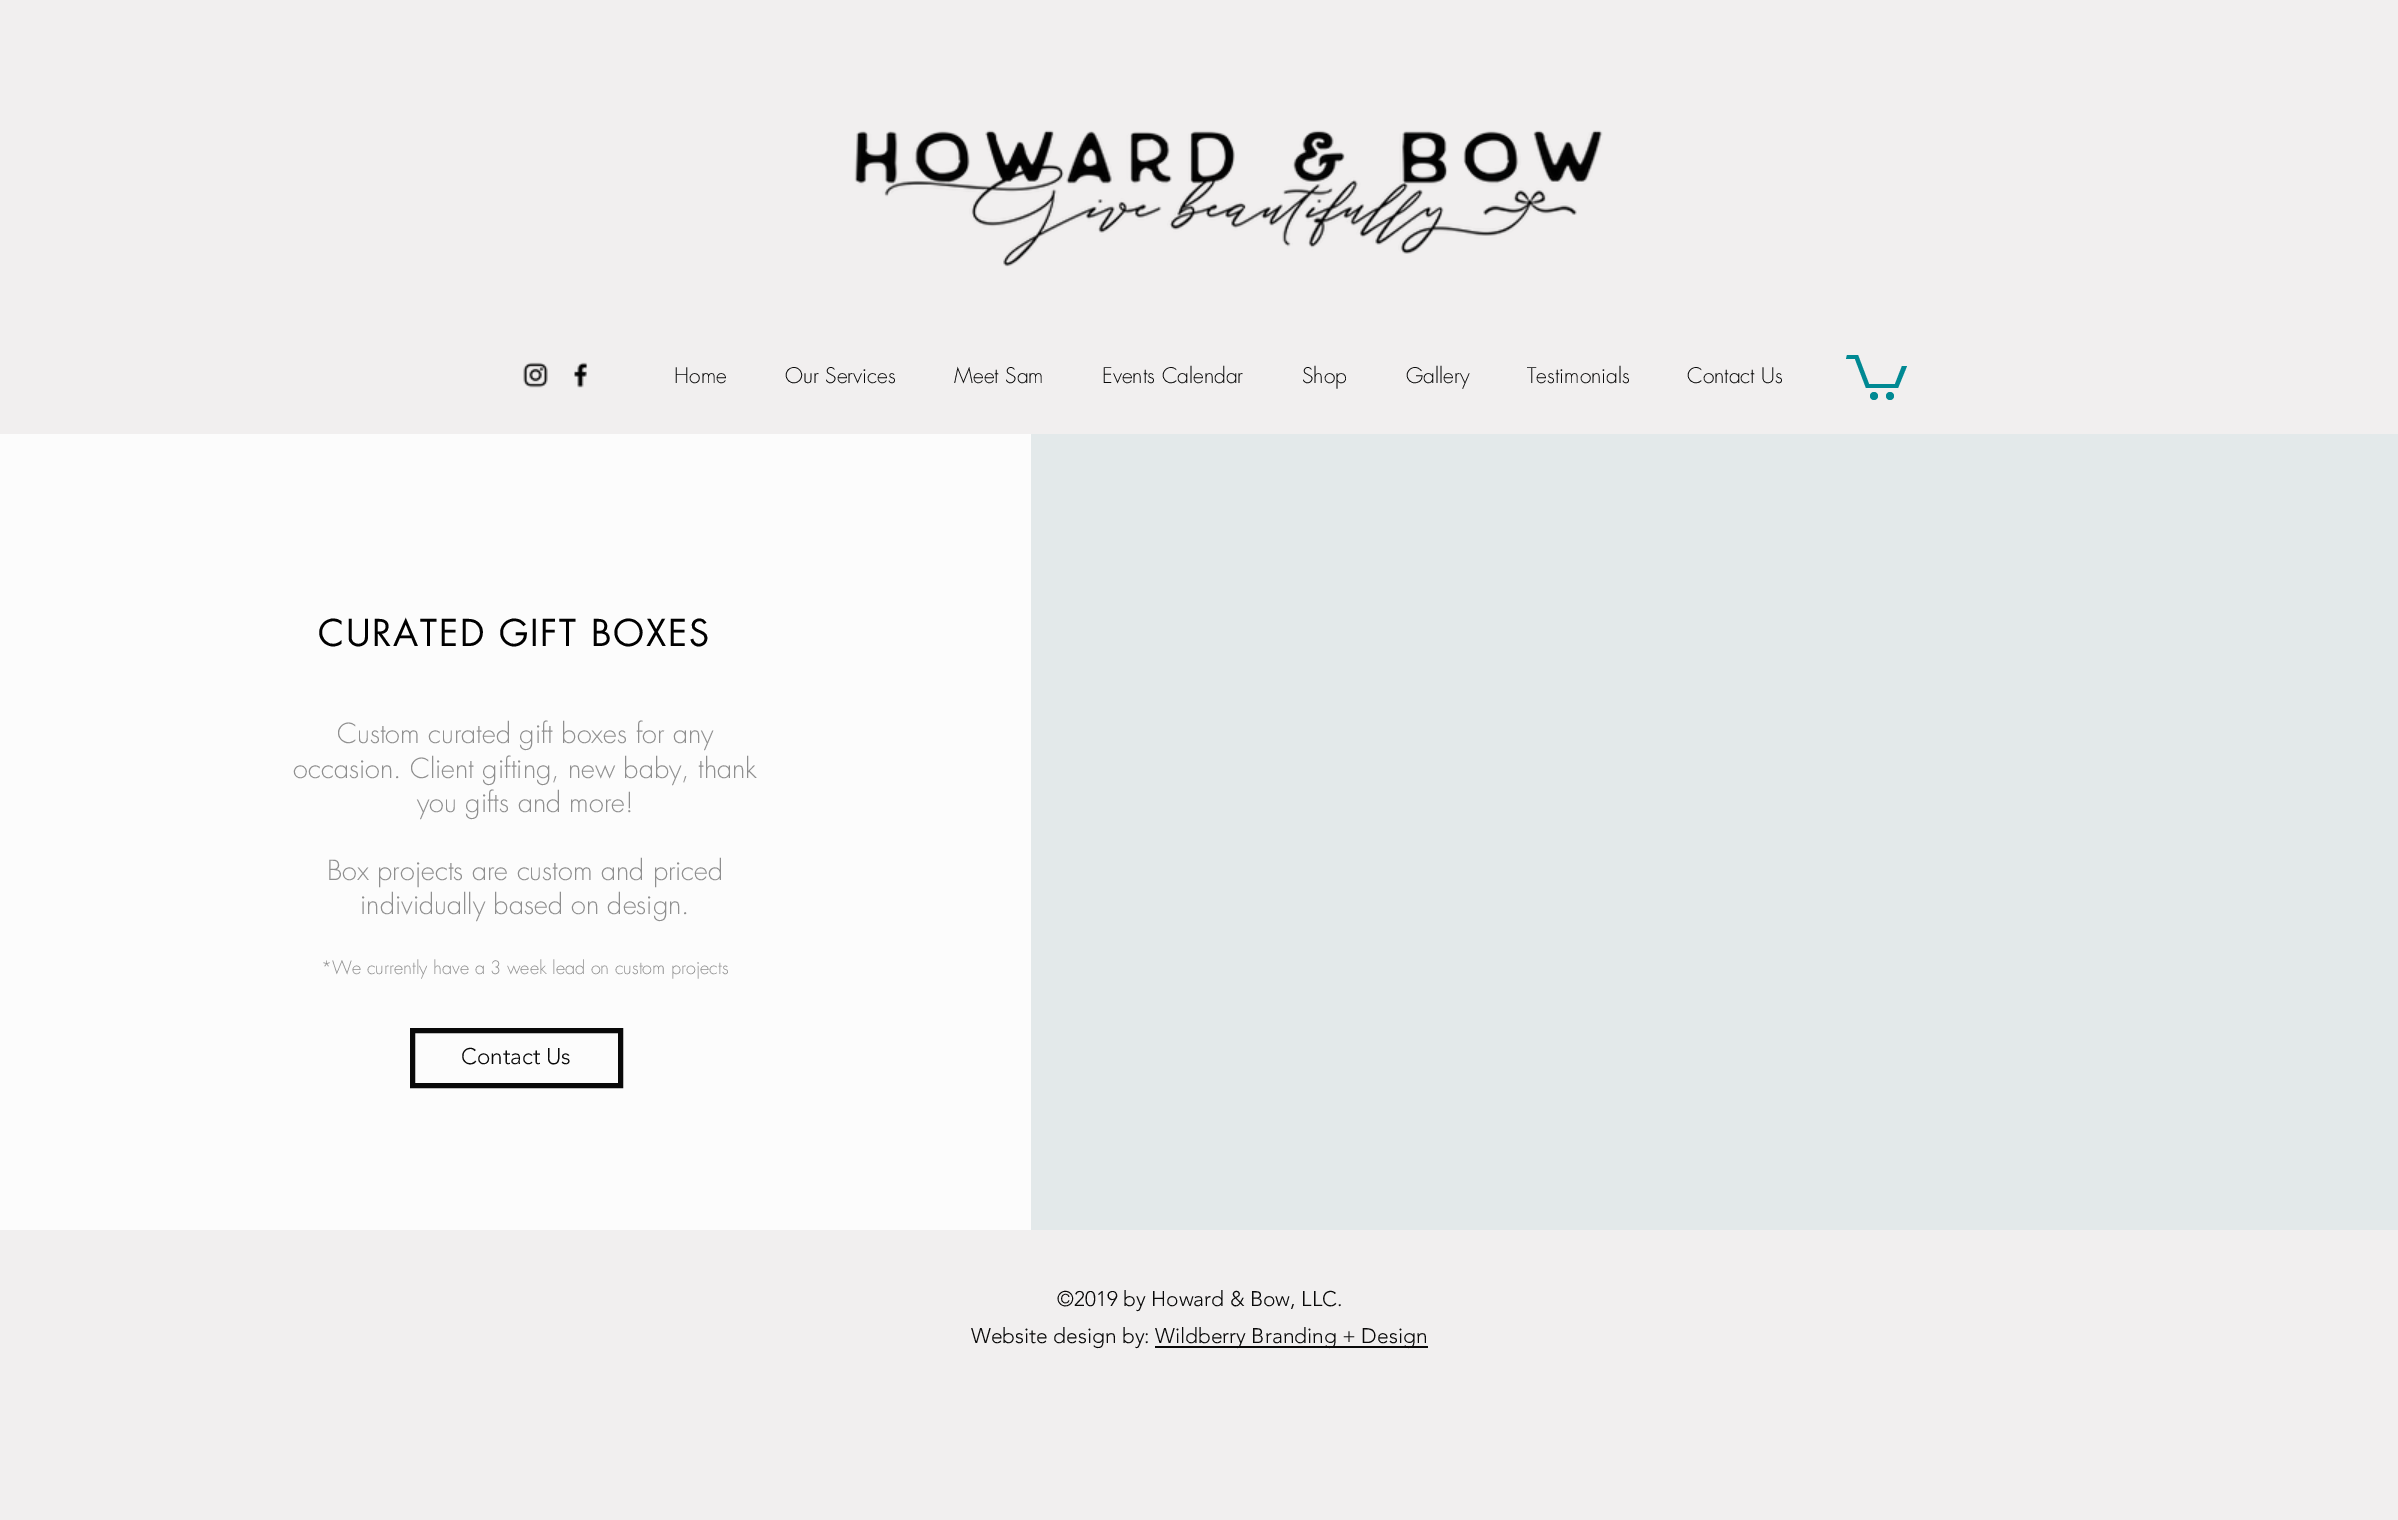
%!PS-Adobe-3.0
%%BoundingBox: 0 0 2398 1520
%%LanguageLevel: 3
%%Pages: 1
%%EndComments
%%BeginProlog
/drawimage { 5 dict begin { /h /w /y /x /name } { exch def } forall
  gsave x y translate w h scale
  w h 8 [w 0 0 h 0 0] name (r) file false 3 colorimage grestore end } def
%%EndProlog
%%BeginSetup
<< /PageSize [2398 1520] >> setpagedevice
%%EndSetup
%%Page: 1 1
0 1520 translate 1 -1 scale
4 setmiterlimit
0.945 0.937 0.937 setrgbcolor
0 0 2398 1520 rectfill
(images/1.raw) 854 130 749 137 drawimage
(images/2.raw) 523 362 25 26 drawimage
(images/3.raw) 574 362 14 26 drawimage
0 0.537 0.576 setrgbcolor
newpath 1907 366 moveto 1898 388 lineto 1866 388 lineto 1855 359 lineto 1846 359 lineto 1847 355 lineto 1858 355 lineto 1869 384 lineto 1895 384 lineto 1902 366 lineto fill
newpath 1890 396 4 0 360 arc closepath fill
newpath 1874 396 4 0 360 arc closepath fill
0.988 setgray
0 434 1031 796 rectfill
0.035 setgray
5 setlinewidth
412.5 1030.5 208 55 rectstroke
0.89 0.914 0.918 setrgbcolor
1031 434 1367 796 rectfill
0.035 setgray
1155 1346 273 2 rectfill
/futura-Light [21 0 0 -21 0 0] selectfont
674 383 moveto (Home) show
785 383 moveto (Our Services) show
954 383 moveto (Meet Sam) show
1102 383 moveto (Events Calendar) show
1302 383 moveto (Shop) show
1406 383 moveto (Gallery) show
1527 383 moveto (Testimonials) show
1687 383 moveto (Contact Us) show
/futura-Regular [36 0 0 -36 0 0] selectfont
0 setgray
318 646 moveto 1.75 0 (CURATED GIFT BOXES) ashow
/futura-Light [27 0 0 -27 0 0] selectfont
0.561 setgray
337 743 moveto (Custom curated gift boxes for any) show
293 778 moveto (occasion. Client gifting, new baby, thank) show
417 812 moveto (you gifts and more!) show
327 880 moveto (Box projects are custom and priced) show
360 914 moveto (individually based on design.) show
/futura-Light [18 0 0 -18 0 0] selectfont
321 974 moveto (*We currently have a 3 week lead on custom projects) show
/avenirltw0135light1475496-Light [22.5 0 0 -22.5 0 0] selectfont
0.035 setgray
461 1064 moveto (Contact Us) show
/avenirltw0135light1475496-Light [21 0 0 -21 0 0] selectfont
1057 1306 moveto (©2019 by Howard & Bow, LLC.) show
971 1343 moveto (Website design by:) show
1155 1343 moveto (Wildberry Branding + Design) show
showpage
%%EOF
